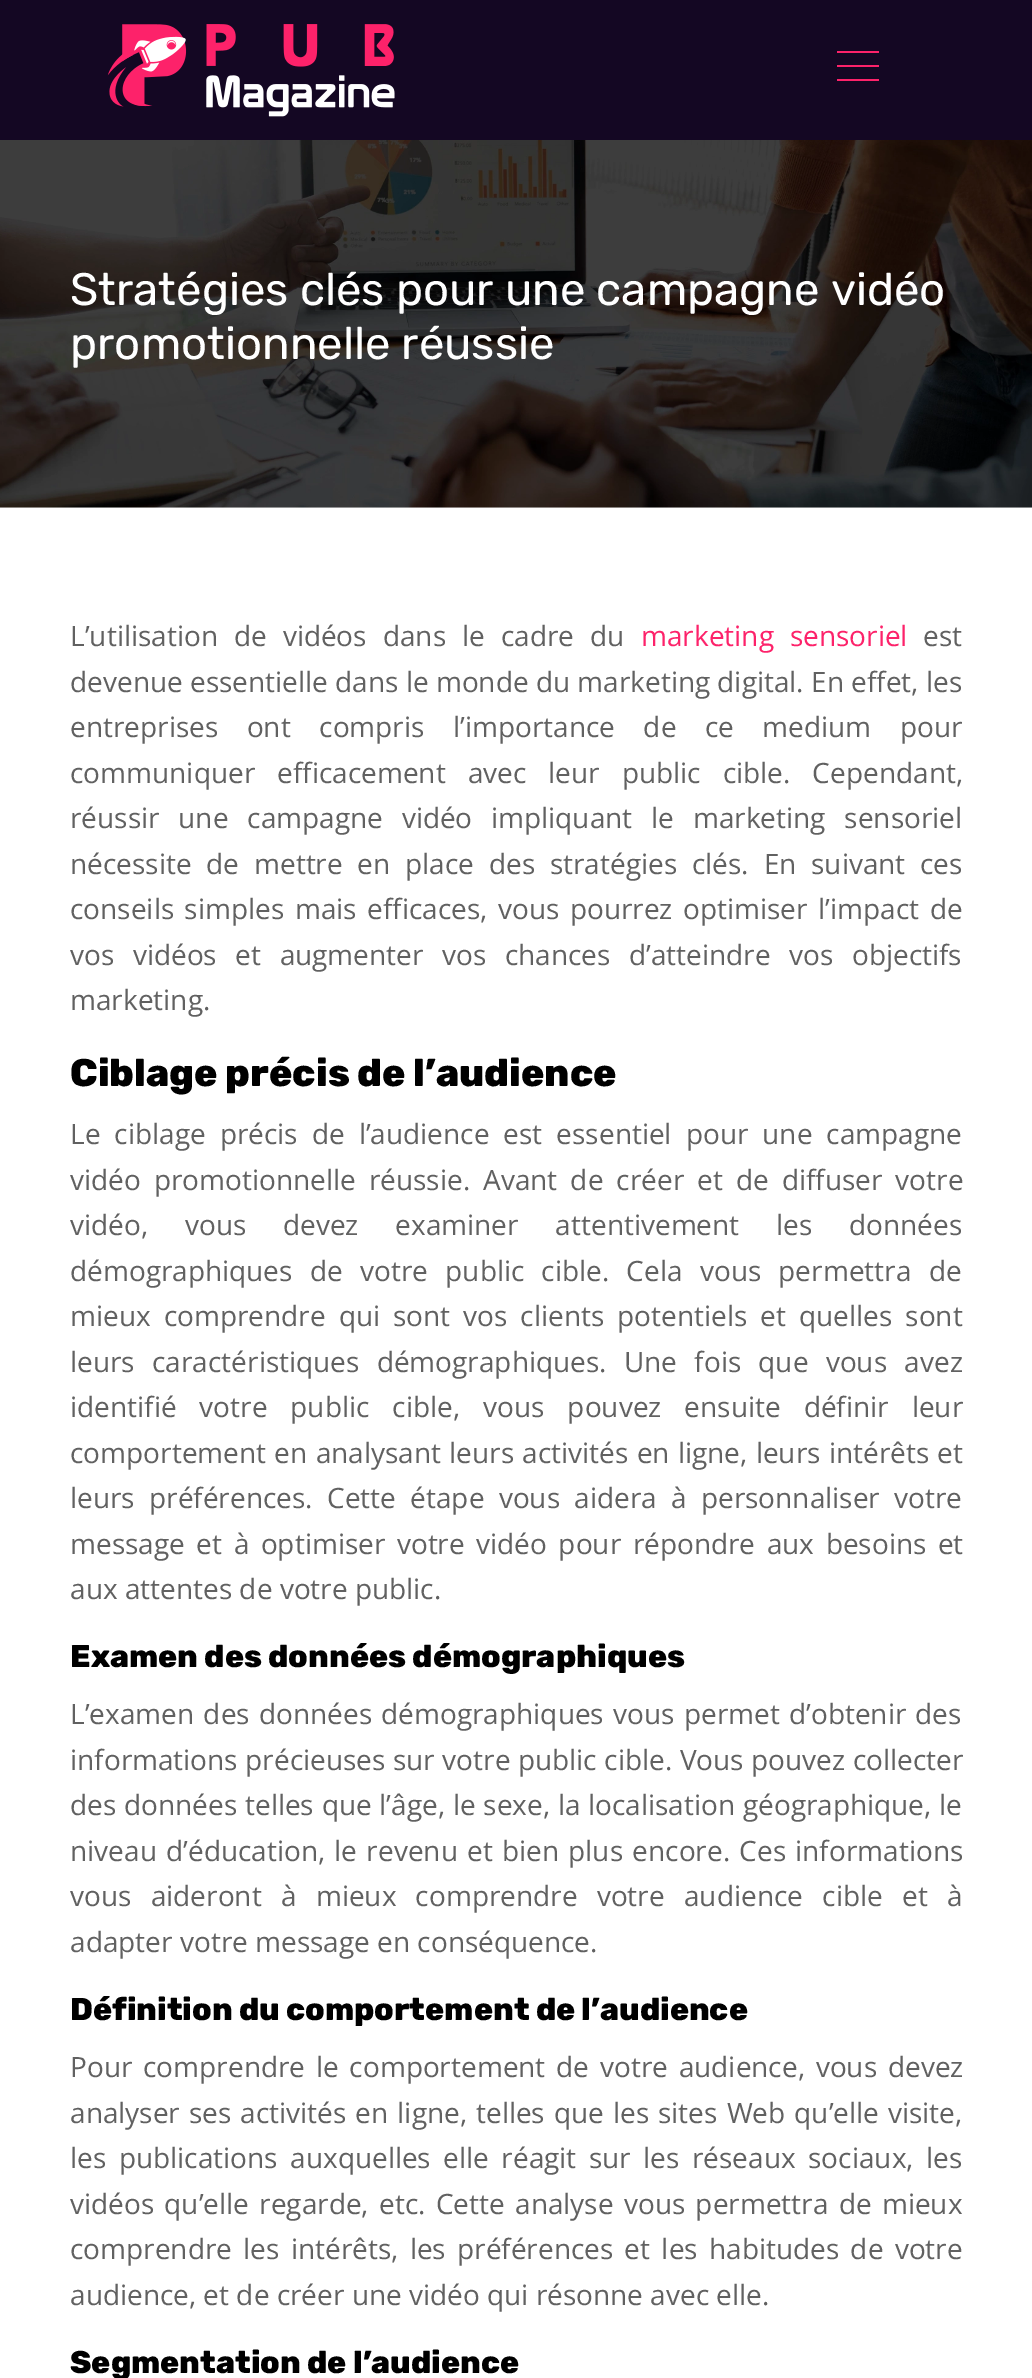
%!PS-Adobe-3.0
%%BoundingBox: 0 0 1032 2378
%%LanguageLevel: 3
%%Pages: 1
%%EndComments
%%BeginProlog
/drawimage { 5 dict begin { /h /w /y /x /name } { exch def } forall
  gsave x y translate w h scale
  w h 8 [w 0 0 h 0 0] name (r) file false 3 colorimage grestore end } def
%%EndProlog
%%BeginSetup
<< /PageSize [1032 2378] >> setpagedevice
%%EndSetup
%%Page: 1 1
0 2378 translate 1 -1 scale
4 setmiterlimit
1 setgray
0 0 1032 2378 rectfill
0.078 0.027 0.137 setrgbcolor
0 0 1032 140 rectfill
(images/1.raw) 107 24 288 93 drawimage
0.992 0.133 0.416 setrgbcolor
837 51 42 2 rectfill
837 65 42 2 rectfill
837 79 42 2 rectfill
0.933 setgray
0 507 1032 1 rectfill
(images/2.raw) 0 140 1032 368 drawimage
/Rubik-Regular [45.5 0 0 -45.5 0 0] selectfont
1 setgray
70 305 moveto (Stratégies clés pour une campagne vidéo) show
70 359 moveto (promotionnelle réussie) show
/OpenSans-Regular [28 0 0 -28 0 0] selectfont
0.38 setgray
70 646 moveto 8.75 0 32 (L’utilisation de vidéos dans le cadre du) widthshow
0.992 0.133 0.416 setrgbcolor
641 646 moveto 8.75 0 32 (marketing sensoriel) widthshow
0.38 setgray
923 646 moveto (est) show
70 692 moveto (devenue essentielle dans le monde du marketing digital. En effet, les) show
70 737 moveto 21.25 0 32 (entreprises ont compris l’importance de ce medium pour) widthshow
70 783 moveto 14.75 0 32 (communiquer efficacement avec leur public cible. Cependant,) widthshow
70 828 moveto 11.5 0 32 (réussir une campagne vidéo impliquant le marketing sensoriel) widthshow
70 874 moveto 7.5 0 32 (nécessite de mettre en place des stratégies clés. En suivant ces) widthshow
70 919 moveto 3.25 0 32 (conseils simples mais efficaces, vous pourrez optimiser l’impact de) widthshow
70 965 moveto 11.25 0 32 (vos vidéos et augmenter vos chances d’atteindre vos objectifs) widthshow
70 1010 moveto (marketing.) show
/Rubik-ExtraBold [38.5 0 0 -38.5 0 0] selectfont
0 setgray
70 1086 moveto (Ciblage précis de l’audience) show
/OpenSans-Regular [28 0 0 -28 0 0] selectfont
0.38 setgray
70 1144 moveto 6.75 0 32 (Le ciblage précis de l’audience est essentiel pour une campagne) widthshow
70 1190 moveto 5.75 0 32 (vidéo promotionnelle réussie. Avant de créer et de diffuser votre) widthshow
70 1235 moveto 29.5 0 32 (vidéo, vous devez examiner attentivement les données) widthshow
70 1281 moveto 10 0 32 (démographiques de votre public cible. Cela vous permettra de) widthshow
70 1326 moveto 5.75 0 32 (mieux comprendre qui sont vos clients potentiels et quelles sont) widthshow
70 1372 moveto 10 0 32 (leurs caractéristiques démographiques. Une fois que vous avez) widthshow
70 1417 moveto 15.75 0 32 (identifié votre public cible, vous pouvez ensuite définir leur) widthshow
70 1463 moveto 1 0 32 (comportement en analysant leurs activités en ligne, leurs intérêts et) widthshow
70 1508 moveto 7 0 32 (leurs préférences. Cette étape vous aidera à personnaliser votre) widthshow
70 1554 moveto 4.25 0 32 (message et à optimiser votre vidéo pour répondre aux besoins et) widthshow
70 1599 moveto (aux attentes de votre public.) show
/Rubik-ExtraBold [31.5 0 0 -31.5 0 0] selectfont
0 setgray
70 1667 moveto (Examen des données démographiques) show
/OpenSans-Regular [28 0 0 -28 0 0] selectfont
0.38 setgray
70 1724 moveto 2 0 32 (L’examen des données démographiques vous permet d’obtenir des) widthshow
70 1770 moveto 0.25 0 32 (informations précieuses sur votre public cible. Vous pouvez collecter) widthshow
70 1815 moveto 0.5 0 32 (des données telles que l’âge, le sexe, la localisation géographique, le) widthshow
70 1861 moveto 2 0 32 (niveau d’éducation, le revenu et bien plus encore. Ces informations) widthshow
70 1906 moveto 12 0 32 (vous aideront à mieux comprendre votre audience cible et à) widthshow
70 1952 moveto (adapter votre message en conséquence.) show
/Rubik-ExtraBold [31.5 0 0 -31.5 0 0] selectfont
0 setgray
70 2020 moveto (Définition du comportement de l’audience) show
/OpenSans-Regular [28 0 0 -28 0 0] selectfont
0.38 setgray
70 2077 moveto 3.5 0 32 (Pour comprendre le comportement de votre audience, vous devez) widthshow
70 2123 moveto 1.75 0 32 (analyser ses activités en ligne, telles que les sites Web qu’elle visite,) widthshow
70 2168 moveto 5.25 0 32 (les publications auxquelles elle réagit sur les réseaux sociaux, les) widthshow
70 2214 moveto 3 0 32 (vidéos qu’elle regarde, etc. Cette analyse vous permettra de mieux) widthshow
70 2259 moveto 4 0 32 (comprendre les intérêts, les préférences et les habitudes de votre) widthshow
70 2305 moveto (audience, et de créer une vidéo qui résonne avec elle.) show
/Rubik-ExtraBold [31.5 0 0 -31.5 0 0] selectfont
0 setgray
70 2373 moveto (Segmentation de l’audience) show
showpage
%%EOF
